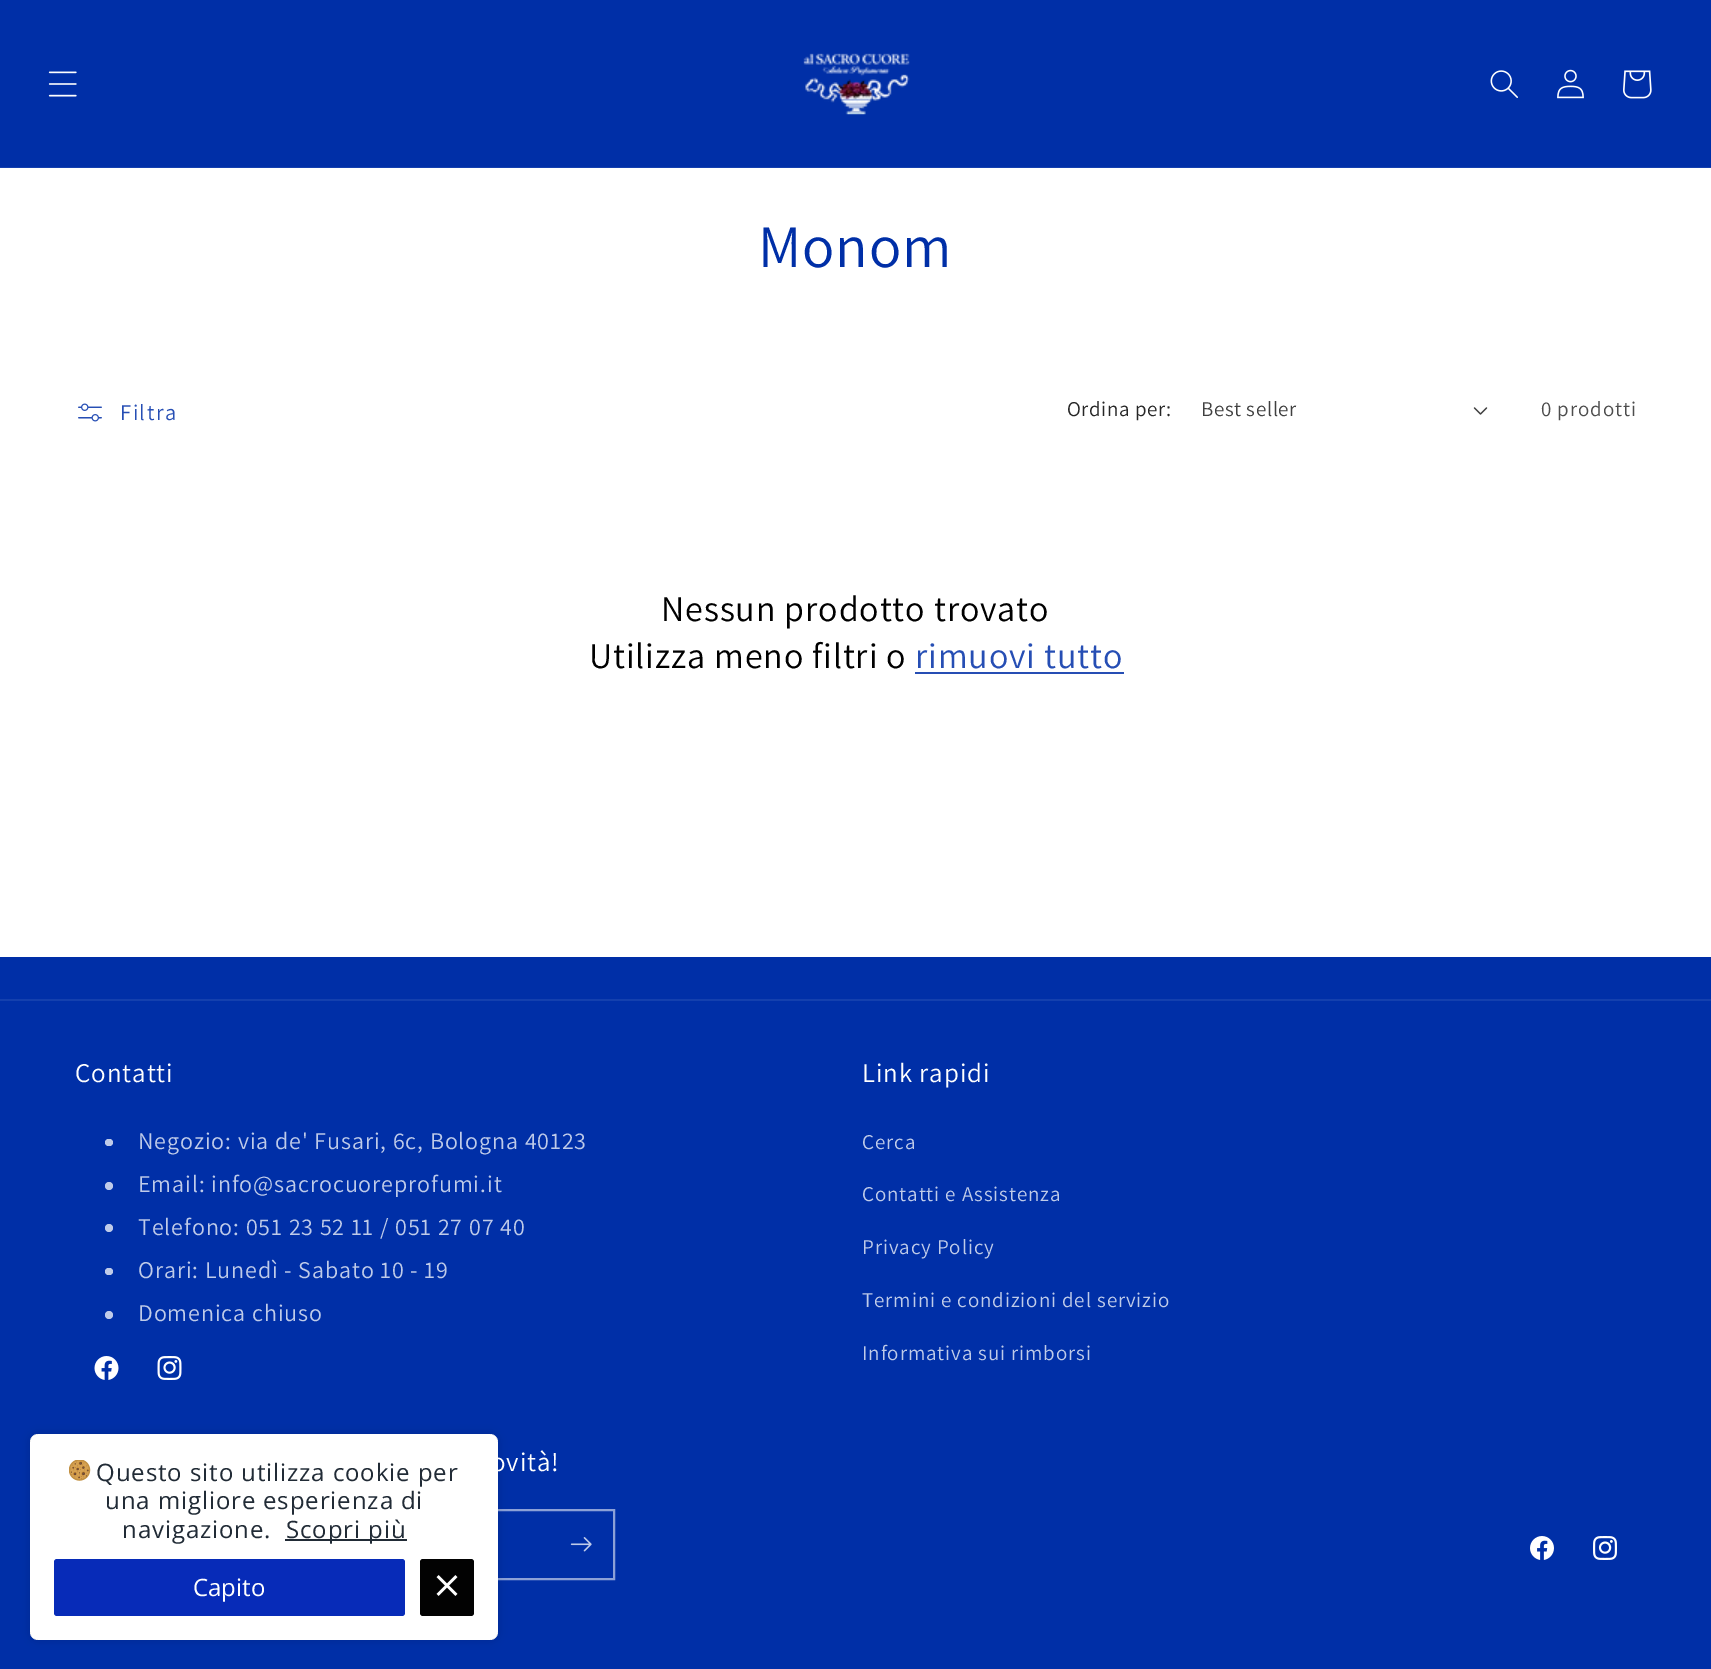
%!PS-Adobe-3.0
%%BoundingBox: 0 0 1711 1669
%%LanguageLevel: 3
%%Pages: 1
%%EndComments
%%BeginProlog
/setalpha { dup .setfillconstantalpha .setstrokeconstantalpha } def
/rrect { 5 dict begin { /r /h /w /y /x } { exch def } forall
  x r add y moveto x w add y 2 copy h add r arct x w add y h add x 1 index r arct
  x y h add x y r arct x y 2 copy exch w add exch r arct closepath end } def
/softshadow { 12 dict begin { /a /b /q /h /w /y /x } { exch def } forall gsave /was 0 def
  9 -2 -9 { dup b mul 4 div /e exch def 1 sub .425 mul 2.718 exch exp 1 add a .99 .min exch div /now exch def
    1 1 now sub 1 was sub div sub setalpha /was now def
    w h .min e 2 mul add 0 gt { x e sub y e sub w e 2 mul add h e 2 mul add
      q e add b .6 mul add w h .min 2 div e add .min 0 .max rrect fill } if } for grestore end } def
/drawimage { 5 dict begin { /h /w /y /x /name } { exch def } forall
  gsave x y translate w h scale
  w h 8 [w 0 0 h 0 0] name (r) file false 3 colorimage grestore end } def
%%EndProlog
%%BeginSetup
<< /PageSize [1711 1669] /PageUsesTransparency true >> setpagedevice
%%EndSetup
%%Page: 1 1
0 .pushpdf14devicefilter
0 1669 translate 1 -1 scale
4 setmiterlimit
0 0.184 0.655 setrgbcolor
0 0 1711 1669 rectfill
0.078 0.251 0.682 setrgbcolor
0 167 1711 1 rectfill
(images/1.raw) 48 71 29 26 drawimage
(images/2.raw) 803 53 107 62 drawimage
(images/3.raw) 1490 70 28 28 drawimage
(images/4.raw) 1557 69 27 30 drawimage
(images/5.raw) 1623 70 29 29 drawimage
1 setgray
0 168 1711 789 rectfill
(images/6.raw) 78 403 24 19 drawimage
(images/7.raw) 1473 407 15 8 drawimage
0.149 0.306 0.706 setrgbcolor
915 672 209 2 rectfill
0.078 0.251 0.682 setrgbcolor
0 999 1711 2 rectfill
0.749 0.796 0.914 setrgbcolor
105 1139 8 7 3.5 rrect fill
newpath 109 1186 4 0 360 arc closepath fill
newpath 109 1228 4 0 360 arc closepath fill
105 1268 8 7 3.5 rrect fill
newpath 109 1315 4 0 360 arc closepath fill
(images/8.raw) 94 1356 25 24 drawimage
(images/9.raw) 157 1356 25 24 drawimage
0.549 0.631 0.843 setrgbcolor
2 setlinewidth
76 1510 538 69 rectstroke
(images/10.raw) 570 1537 22 15 drawimage
(images/11.raw) 1530 1536 24 24 drawimage
(images/12.raw) 1593 1536 24 24 drawimage
1 setgray
30 1434 468 206 8 rrect fill
gsave
newpath 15 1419 moveto 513 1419 lineto 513 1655 lineto 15 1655 lineto closepath 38 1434 moveto 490 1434 lineto 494.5 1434 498 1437.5 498 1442 curveto 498 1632 lineto 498 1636.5 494.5 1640 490 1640 curveto 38 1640 lineto 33.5 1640 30 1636.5 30 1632 curveto 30 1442 lineto 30 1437.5 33.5 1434 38 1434 curveto closepath eoclip newpath
0 setgray
30 1434 468 206 8 4.5 0.12 softshadow
grestore
(images/13.raw) 69 1460 22 21 drawimage
0.129 0.169 0.212 setrgbcolor
285 1539 122 2 rectfill
0.027 0.169 0.722 setrgbcolor
54 1559 351 57 3 rrect fill
0.008 setgray
420 1559 54 57 3 rrect fill
(images/14.raw) 436 1575 22 21 drawimage
/Assistant-Regular [60 0 0 -60 0 0] selectfont
0 0.184 0.655 setrgbcolor
758 267 moveto 0.9 0 (Monom) ashow
/Assistant-Regular [22.5 0 0 -22.5 0 0] selectfont
0.149 0.306 0.706 setrgbcolor
120 420 moveto 1.5 0 (Filtra) ashow
/Assistant-Regular [21 0 0 -21 0 0] selectfont
0.149 setgray
1067 416 moveto 0.6 0 (Ordina per:) ashow
0.251 setgray
1201 416 moveto 0.6 0 (Best seller) ashow
0.302 setgray
1541 416 moveto 0.9 0 (0 prodotti) ashow
/Assistant-Regular [36 0 0 -36 0 0] selectfont
0 setgray
661 621 moveto 0.9 0 (Nessun prodotto trovato) ashow
589 668 moveto 0.9 0 (Utilizza meno filtri o) ashow
0.149 0.306 0.706 setrgbcolor
915 668 moveto 0.9 0 (rimuovi tutto) ashow
/Assistant-Regular [27 0 0 -27 0 0] selectfont
1 setgray
75 1082 moveto 0.9 0 (Contatti) ashow
/Assistant-Regular [24 0 0 -24 0 0] selectfont
0.749 0.796 0.914 setrgbcolor
138 1149 moveto 0.9 0 (Negozio: via de' Fusari, 6c, Bologna 40123) ashow
138 1192 moveto 0.9 0 (Email: info@sacrocuoreprofumi.it) ashow
138 1235 moveto 0.9 0 (Telefono: 051 23 52 11 / 051 27 07 40) ashow
138 1278 moveto 0.9 0 (Orari: Lunedì - Sabato 10 - 19) ashow
138 1321 moveto 0.9 0 (Domenica chiuso) ashow
/Assistant-Regular [27 0 0 -27 0 0] selectfont
1 setgray
862 1082 moveto 0.9 0 (Link rapidi) ashow
/Assistant-Regular [21 0 0 -21 0 0] selectfont
0.749 0.796 0.914 setrgbcolor
862 1149 moveto 0.9 0 (Cerca) ashow
862 1201 moveto 0.9 0 (Contatti e Assistenza) ashow
862 1254 moveto 0.9 0 (Privacy Policy) ashow
862 1307 moveto 0.9 0 (Termini e condizioni del servizio) ashow
862 1360 moveto 0.9 0 (Informativa sui rimborsi) ashow
/Assistant-Regular [27 0 0 -27 0 0] selectfont
1 setgray
491 1471 moveto 0.9 0 (ovità!) ashow
/OpenSans-Regular [24 0 0 -24 0 0] selectfont
0.129 0.169 0.212 setrgbcolor
96 1481 moveto 0.9 0 (Questo sito utilizza cookie per) ashow
105 1509 moveto 0.9 0 (una migliore esperienza di) ashow
122 1538 moveto 0.9 0 (navigazione.) ashow
286 1538 moveto 0.9 0 (Scopri più) ashow
1 setgray
193 1596 moveto (Capito) show
.poppdf14devicefilter showpage
%%EOF
